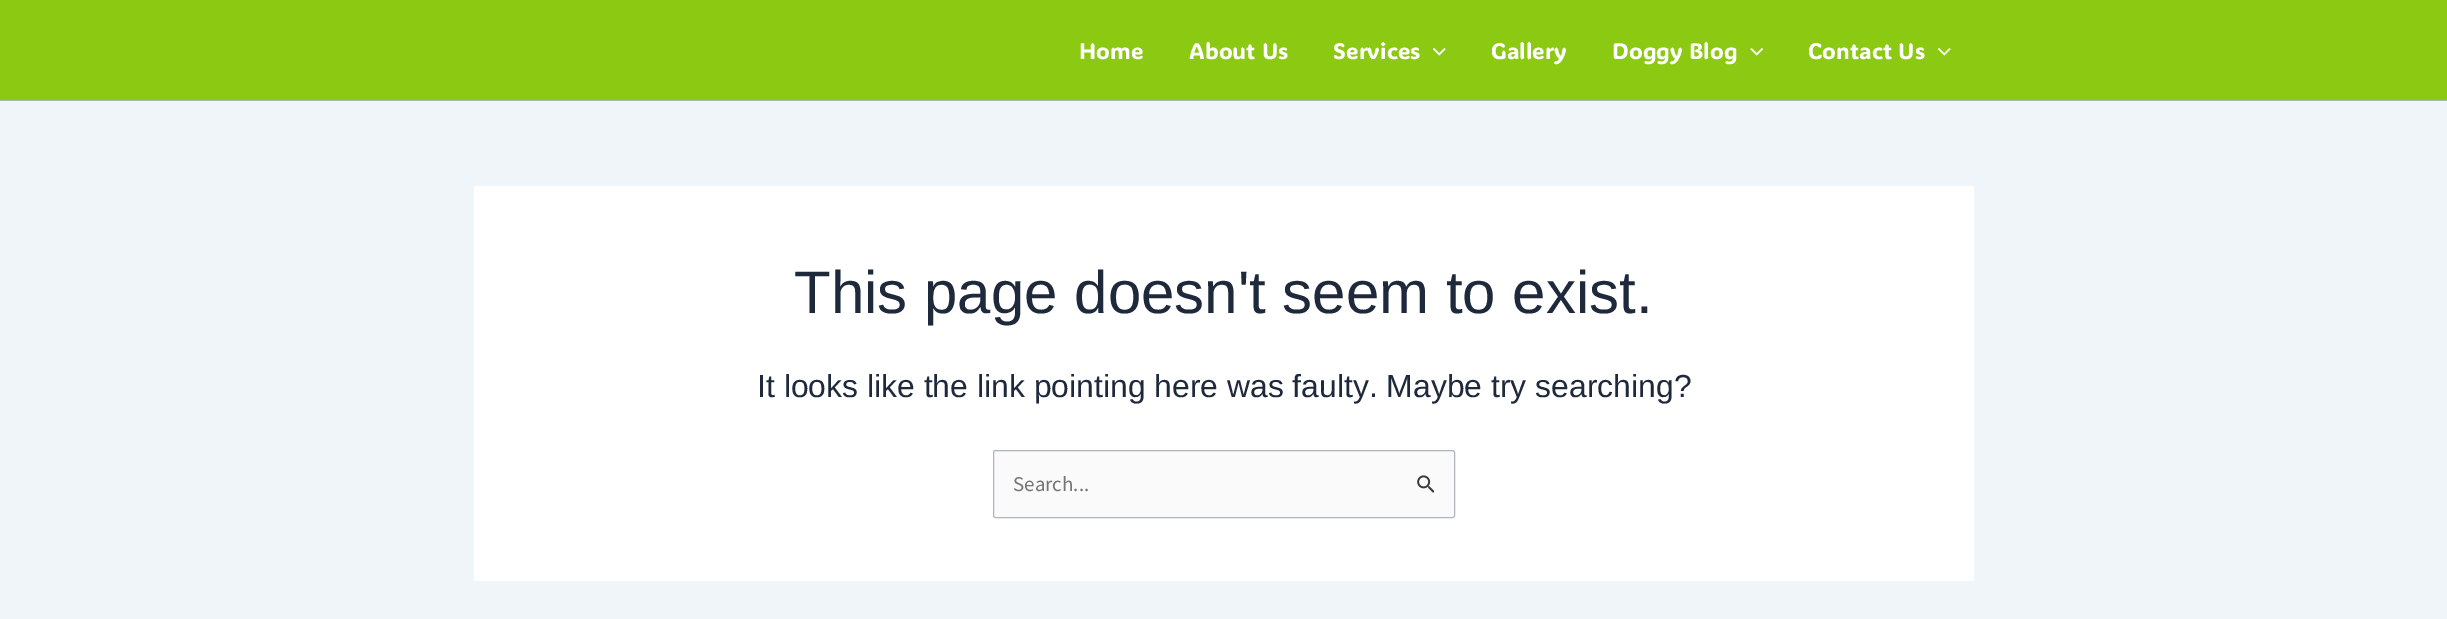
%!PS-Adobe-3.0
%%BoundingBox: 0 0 2447 619
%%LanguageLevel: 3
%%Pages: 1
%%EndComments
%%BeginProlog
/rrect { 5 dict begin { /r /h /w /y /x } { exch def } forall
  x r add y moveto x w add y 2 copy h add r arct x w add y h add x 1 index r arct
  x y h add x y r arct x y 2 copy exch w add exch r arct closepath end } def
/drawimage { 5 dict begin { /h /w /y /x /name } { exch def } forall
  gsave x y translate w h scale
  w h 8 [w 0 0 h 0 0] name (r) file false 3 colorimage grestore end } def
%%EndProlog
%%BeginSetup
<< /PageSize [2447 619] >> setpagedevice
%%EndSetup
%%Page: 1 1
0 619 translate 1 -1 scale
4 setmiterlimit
0.941 0.961 0.98 setrgbcolor
0 0 2447 619 rectfill
0.549 0.788 0.071 setrgbcolor
0 0 2447 100 rectfill
0.678 0.714 0.745 setrgbcolor
0 100 2447 1 rectfill
(images/1.raw) 1433 48 13 8 drawimage
(images/2.raw) 1750 48 14 8 drawimage
(images/1.raw) 1938 48 13 8 drawimage
1 setgray
474 186 1500 395 rectfill
0.98 setgray
993.5 450.5 461 67 2 rrect gsave fill grestore
0.678 0.714 0.745 setrgbcolor
stroke
(images/3.raw) 1417 475 17 18 drawimage
/ADLaMDisplay-Regular [22.5 0 0 -22.5 0 0] selectfont
1 setgray
1079 59 moveto (Home) show
1189 59 moveto (About Us) show
1333 59 moveto (Services) show
1491 59 moveto (Gallery) show
1612 59 moveto (Doggy Blog) show
1808 59 moveto (Contact Us) show
/LiberationSans-Regular [60 0 0 -60 0 0] selectfont
0.118 0.161 0.231 setrgbcolor
794 313 moveto (This page doesn't seem to exist.) show
/LiberationSans-Regular [31.9 0 0 -31.9 0 0] selectfont
757 397 moveto (It looks like the link pointing here was faulty. Maybe try searching?) show
/SourceSansPro-Regular [21 0 0 -21 0 0] selectfont
0.459 setgray
1013 491 moveto (Search...) show
showpage
%%EOF
